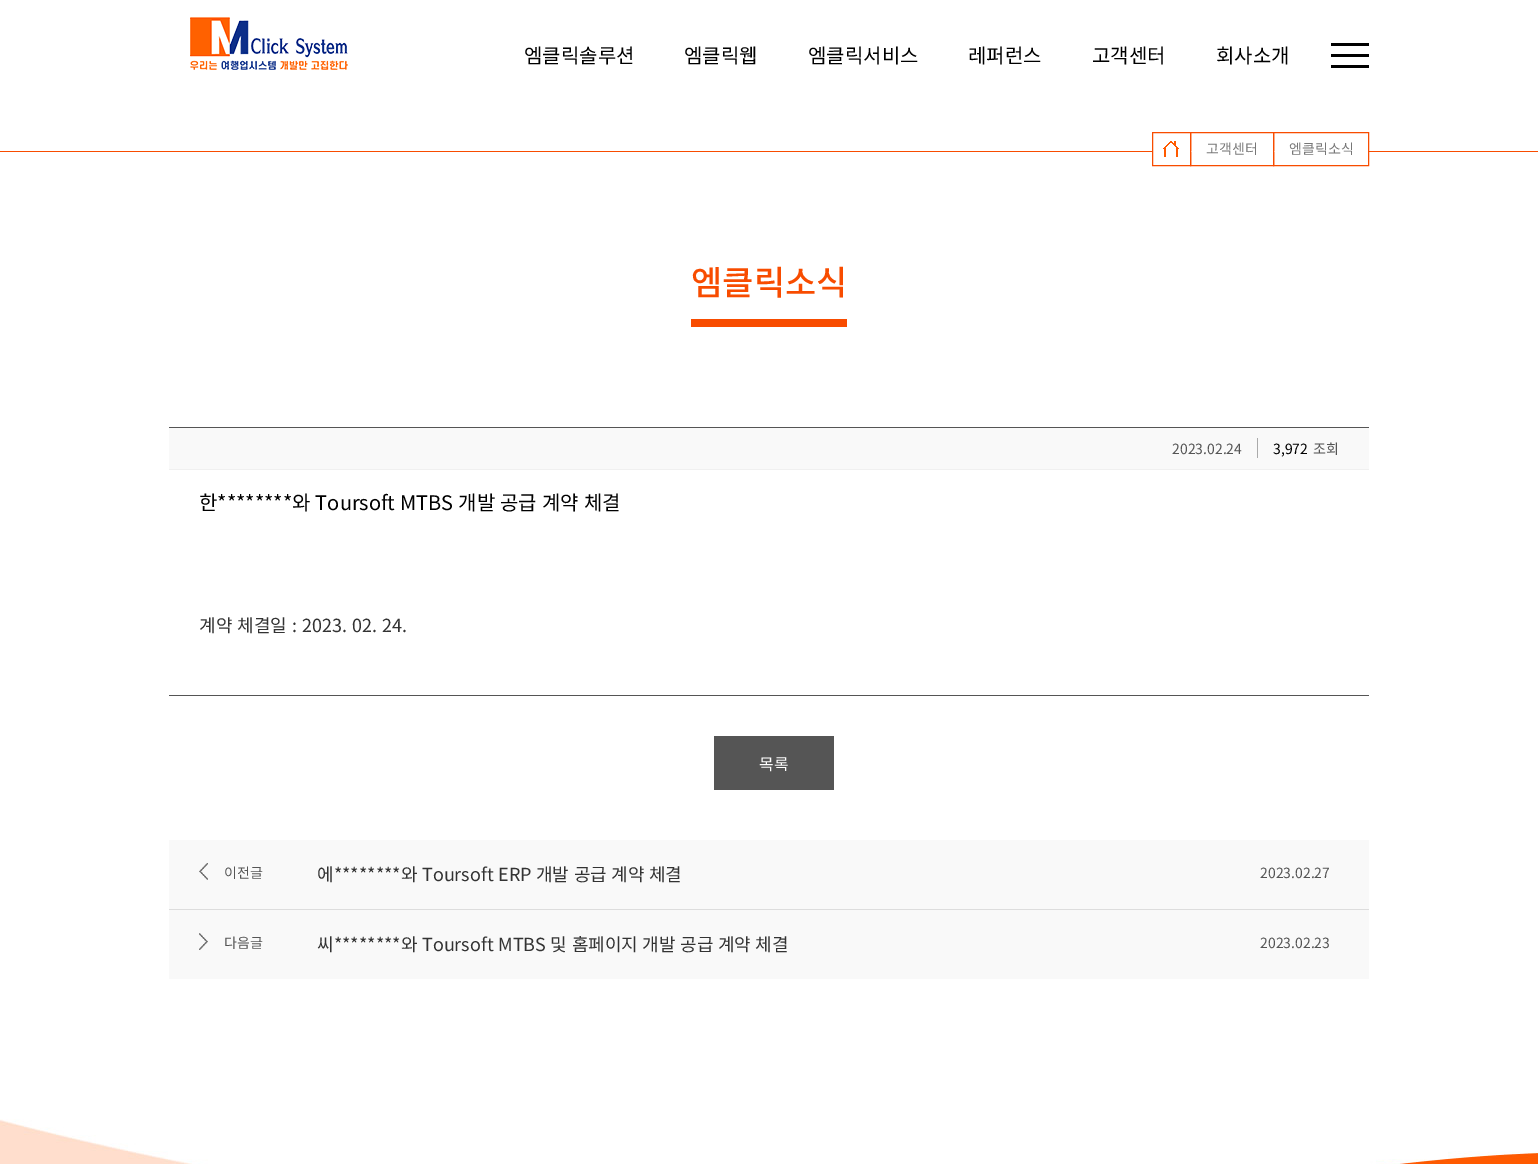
%!PS-Adobe-3.0
%%BoundingBox: 0 0 1538 1164
%%LanguageLevel: 3
%%Pages: 1
%%EndComments
%%BeginProlog
/drawimage { 5 dict begin { /h /w /y /x /name } { exch def } forall
  gsave x y translate w h scale
  w h 8 [w 0 0 h 0 0] name (r) file false 3 colorimage grestore end } def
%%EndProlog
%%BeginSetup
<< /PageSize [1538 1164] >> setpagedevice
%%EndSetup
%%Page: 1 1
0 1164 translate 1 -1 scale
4 setmiterlimit
1 setgray
0 0 1538 1164 rectfill
(images/1.raw) 190 17 158 53 drawimage
0 setgray
1331 43 38 3 rectfill
1331 54 38 3 rectfill
1331 65 38 3 rectfill
0.973 0.298 0 setrgbcolor
0 151 1538 1 rectfill
1 setgray
1153 151 37 1 rectfill
0.973 0.298 0 setrgbcolor
1152.5 132.5 38 33 rectstroke
(images/2.raw) 1163 141 16 16 drawimage
1 setgray
1191 151 82 1 rectfill
0.973 0.298 0 setrgbcolor
1190.5 132.5 83 33 rectstroke
1 setgray
1274 151 94 1 rectfill
0.973 0.298 0 setrgbcolor
1273.5 132.5 95 33 rectstroke
691 319 156 8 rectfill
0.333 setgray
169 427 1200 1 rectfill
169 695 1200 1 rectfill
0.976 setgray
169 428 1200 41 rectfill
0.941 setgray
169 469 1200 1 rectfill
0.667 setgray
1257 438 1 20 rectfill
0.333 setgray
714 736 120 54 rectfill
0.976 setgray
169 840 1200 139 rectfill
0.867 setgray
169 909 1200 1 rectfill
(images/3.raw) 199 863 9 17 drawimage
(images/4.raw) 199 933 9 17 drawimage
(images/5.raw) 0 1119 1538 45 drawimage
/NotoSansKR-Regular [20 0 0 -20 0 0] selectfont
0 setgray
524 63 moveto (엠클릭솔루션) show
684 63 moveto (엠클릭웹) show
808 63 moveto (엠클릭서비스) show
968 63 moveto (레퍼런스) show
1092 63 moveto (고객센터) show
1216 63 moveto (회사소개) show
/NotoSansKR-Regular [14 0 0 -14 0 0] selectfont
0.467 setgray
1206 154 moveto (고객센터) show
1289 154 moveto (엠클릭소식) show
/NotoSansKR-Medium [34 0 0 -34 0 0] selectfont
0.973 0.298 0 setrgbcolor
691 295 moveto (엠클릭소식) show
/NotoSansKR-Regular [14 0 0 -14 0 0] selectfont
0.333 setgray
1172 454 moveto (2023.02.24) show
0 setgray
1273 454 moveto (3,972) show
0.333 setgray
1313 454 moveto (조회) show
/NotoSansKR-Regular [20 0 0 -20 0 0] selectfont
0 setgray
199 510 moveto 0.5 0 32 (한********와 Toursoft MTBS 개발 공급 계약 체결) widthshow
/NotoSansKR-Regular [18 0 0 -18 0 0] selectfont
0.2 setgray
199 632 moveto 1 0 32 (계약 체결일 : 2023. 02. 24.) widthshow
/NotoSansKR-Regular [16 0 0 -16 0 0] selectfont
1 setgray
759 770 moveto (목록) show
/NotoSansKR-Regular [14 0 0 -14 0 0] selectfont
0.333 setgray
224 878 moveto (이전글) show
/NotoSansKR-Regular [18 0 0 -18 0 0] selectfont
0.2 setgray
317 881 moveto 0.5 0 32 (에********와 Toursoft ERP 개발 공급 계약 체결) widthshow
/NotoSansKR-Regular [14 0 0 -14 0 0] selectfont
0.333 setgray
1260 878 moveto (2023.02.27) show
224 948 moveto (다음글) show
/NotoSansKR-Regular [18 0 0 -18 0 0] selectfont
0.2 setgray
317 951 moveto 0.5 0 32 (씨********와 Toursoft MTBS 및 홈페이지 개발 공급 계약 체결) widthshow
/NotoSansKR-Regular [14 0 0 -14 0 0] selectfont
0.333 setgray
1260 948 moveto (2023.02.23) show
showpage
%%EOF
